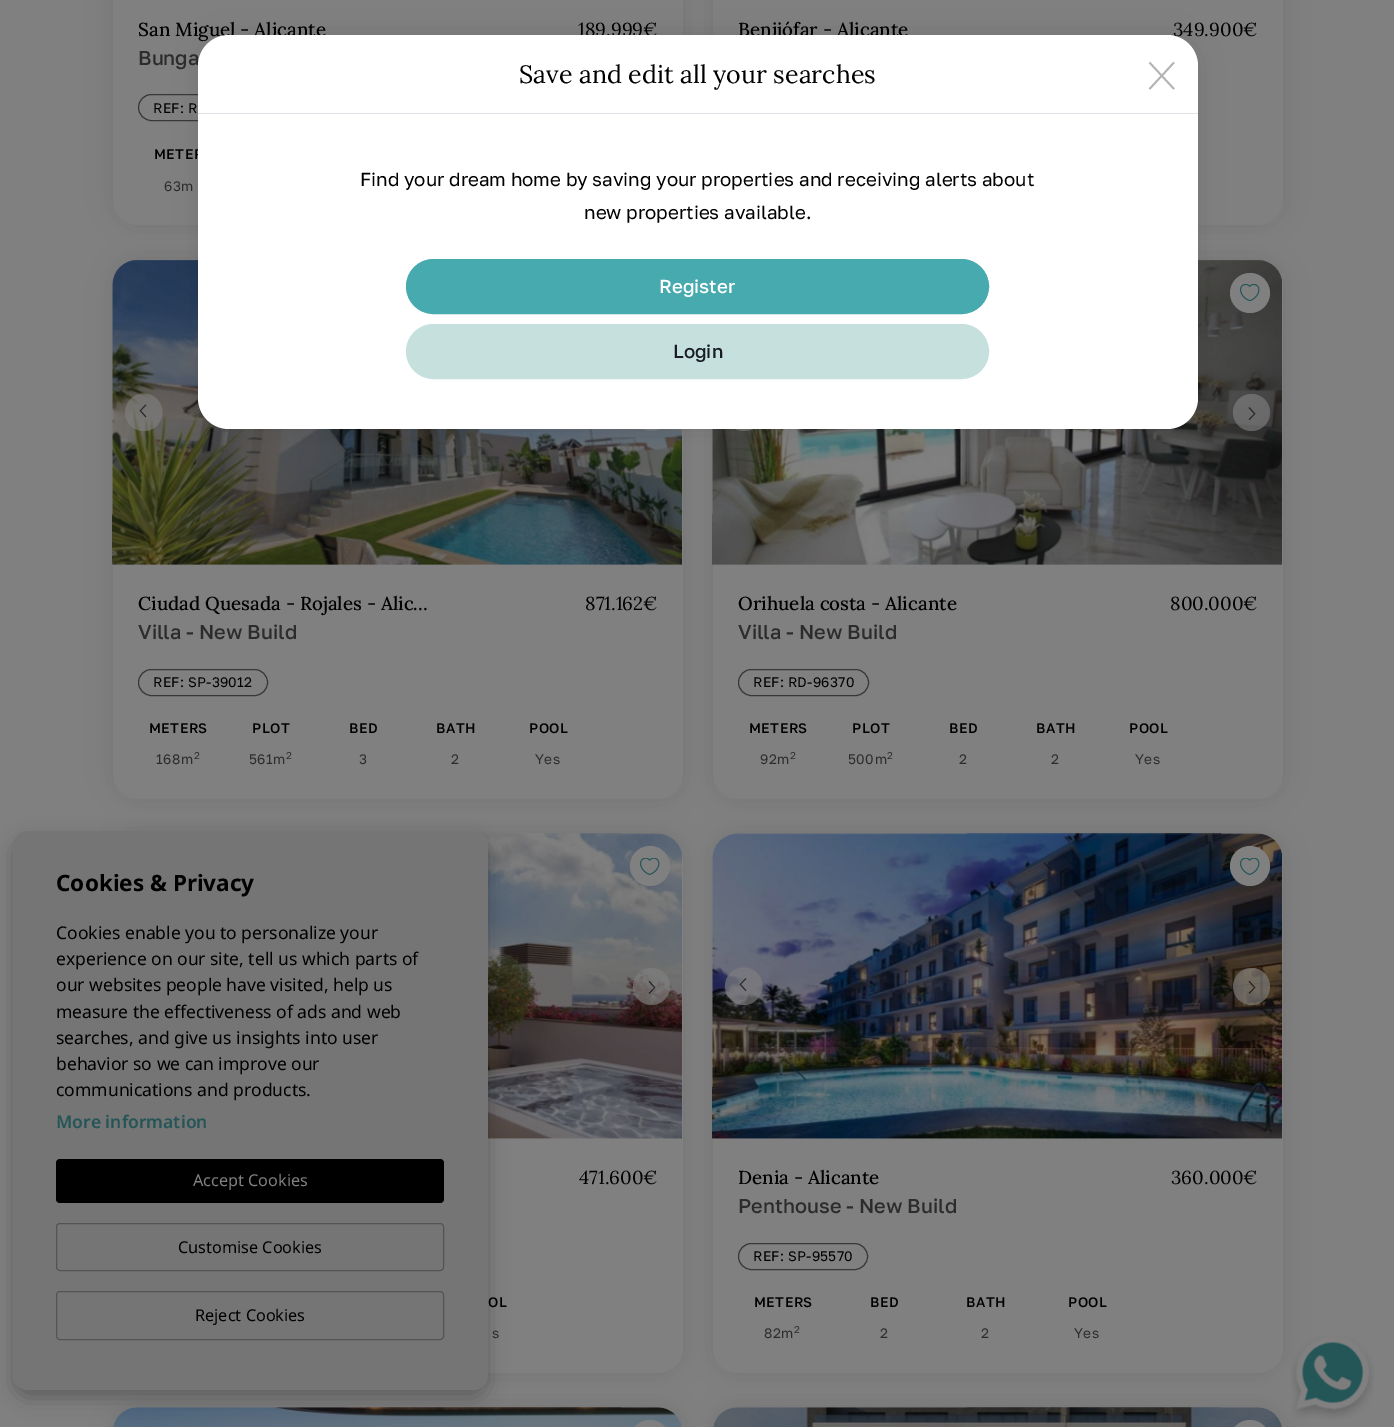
%!PS-Adobe-3.0
%%BoundingBox: 0 0 1394 1427
%%LanguageLevel: 3
%%Pages: 1
%%EndComments
%%BeginProlog
/setalpha { dup .setfillconstantalpha .setstrokeconstantalpha } def
/rrect { 5 dict begin { /r /h /w /y /x } { exch def } forall
  x r add y moveto x w add y 2 copy h add r arct x w add y h add x 1 index r arct
  x y h add x y r arct x y 2 copy exch w add exch r arct closepath end } def
/softshadow { 12 dict begin { /a /b /q /h /w /y /x } { exch def } forall gsave /was 0 def
  9 -2 -9 { dup b mul 4 div /e exch def 1 sub .425 mul 2.718 exch exp 1 add a .99 .min exch div /now exch def
    1 1 now sub 1 was sub div sub setalpha /was now def
    w h .min e 2 mul add 0 gt { x e sub y e sub w e 2 mul add h e 2 mul add
      q e add b .6 mul add w h .min 2 div e add .min 0 .max rrect fill } if } for grestore end } def
/drawimage { 5 dict begin { /h /w /y /x /name } { exch def } forall
  gsave x y translate w h scale
  w h 8 [w 0 0 h 0 0] name (r) file false 3 colorimage grestore end } def
%%EndProlog
%%BeginSetup
<< /PageSize [1394 1427] /PageUsesTransparency true >> setpagedevice
%%EndSetup
%%Page: 1 1
0 .pushpdf14devicefilter
0 1427 translate 1 -1 scale
4 setmiterlimit
0.502 setgray
0 0 1394 1427 rectfill
0 setgray
113 -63 570 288 25 12.5 0.1 softshadow
0.502 setgray
113 -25 570 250 25 rrect fill
0.22 setgray
138.5 94.5 131 26 13 rrect stroke
0 setgray
713 -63 570 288 25 12.5 0.1 softshadow
0.502 setgray
713 -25 570 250 25 rrect fill
0 setgray
113 260 570 539 25 12.5 0.1 softshadow
0.502 setgray
113 260 570 539 25 rrect fill
(images/1.raw) 112 260 570 305 drawimage
0.64 setalpha
newpath 144 431 moveto 133.5 431 125 422.5 125 412.5 curveto 125 402 133.5 393.5 144 393.5 curveto 154 393.5 162.5 402 162.5 412.5 curveto 162.5 422.5 154 431 144 431 curveto closepath fill
1 setalpha
(images/2.raw) 139 404 8 14 drawimage
0.64 setalpha
newpath 651.5 412.5 18.5 0 360 arc closepath fill
1 setalpha
0.22 setgray
138.5 669.5 129 26 13 rrect stroke
0 setgray
713 260 570 539 25 12.5 0.1 softshadow
0.502 setgray
713 260 570 539 25 rrect fill
(images/4.raw) 712 260 570 305 drawimage
newpath 1250 293 20 0 360 arc closepath fill
(images/3.raw) 1240 284 20 17 drawimage
0.64 setalpha
newpath 744 431 moveto 733.5 431 725 422.5 725 412.5 curveto 725 402 733.5 393.5 744 393.5 curveto 754 393.5 762.5 402 762.5 412.5 curveto 762.5 422.5 754 431 744 431 curveto closepath fill
newpath 1251.5 412.5 18.5 0 360 arc closepath fill
1 setalpha
(images/5.raw) 1248 407 8 14 drawimage
0.22 setgray
738.5 669.5 130 26 13 rrect stroke
0 setgray
113 834 570 539 25 12.5 0.1 softshadow
0.502 setgray
113 834 570 539 25 rrect fill
(images/7.raw) 480 833 202 306 drawimage
newpath 650 866 20 0 360 arc closepath fill
(images/6.raw) 640 858 20 17 drawimage
0.64 setalpha
newpath 651.5 986.5 18.5 0 360 arc closepath fill
1 setalpha
(images/8.raw) 648 980 8 14 drawimage
0 setgray
713 834 570 539 25 12.5 0.1 softshadow
0.502 setgray
713 834 570 539 25 rrect fill
(images/9.raw) 712 833 570 306 drawimage
newpath 1250 866 20 0 360 arc closepath fill
(images/6.raw) 1240 858 20 17 drawimage
0.64 setalpha
newpath 744 1005 moveto 733.5 1005 725 996.5 725 986 curveto 725 976 733.5 967.5 744 967.5 curveto 754 967.5 762.5 976 762.5 986 curveto 762.5 996.5 754 1005 744 1005 curveto closepath fill
1 setalpha
(images/10.raw) 739 978 8 14 drawimage
0.64 setalpha
newpath 1251.5 986.5 18.5 0 360 arc closepath fill
1 setalpha
(images/11.raw) 1248 980 8 14 drawimage
0.22 setgray
738.5 1243.5 129 26 13 rrect stroke
0 setgray
113 1408 570 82 25 12.5 0.1 softshadow
0.502 setgray
113 1408 570 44 25 rrect fill
(images/12.raw) 113 1407 569 20 drawimage
630 1420 40 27 20 rrect fill
0 setgray
713 1408 570 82 25 12.5 0.1 softshadow
0.502 setgray
713 1408 570 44 25 rrect fill
(images/13.raw) 713 1407 569 20 drawimage
1230 1420 40 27 20 rrect fill
0 setgray
198 35 1000 394 31 12.5 0.1 softshadow
13 839 475 559 15 10 0.25 softshadow
0.459 setgray
13 831 475 559 15 rrect fill
0 setgray
56 1159 388 44 4 rrect fill
0.329 setgray
56.5 1223.5 387 47 3.5 rrect stroke
56.5 1291.5 387 48 3.5 rrect stroke
(images/14.raw) 1291 1336 83 83 drawimage
/Lora-Medium [18.75 0 0 -18.75 0 0] selectfont
0 setgray
138 36 moveto (San Miguel - Alicante) show
/GolosText-Medium [20 0 0 -20 0 0] selectfont
0.173 setgray
138 65 moveto (Bunga) show
/Lora-Regular [18.75 0 0 -18.75 0 0] selectfont
0 setgray
578 36 moveto (189.999€) show
/GolosText-Regular [13.75 0 0 -13.75 0 0] selectfont
153 113 moveto 0.25 0 (REF: R) ashow
/GolosText-Medium [13.75 0 0 -13.75 0 0] selectfont
154 159 moveto 0.5 0 (METER) ashow
/GolosText-Regular [13.75 0 0 -13.75 0 0] selectfont
0.173 setgray
164 191 moveto 0.5 0 (63m) ashow
/Lora-Medium [18.75 0 0 -18.75 0 0] selectfont
0 setgray
738 36 moveto (Benijófar - Alicante) show
/Lora-Regular [18.75 0 0 -18.75 0 0] selectfont
1173 36 moveto (349.900€) show
/Lora-Medium [18.75 0 0 -18.75 0 0] selectfont
138 610 moveto (Ciudad Quesada - Rojales - Alic…) show
/GolosText-Medium [20 0 0 -20 0 0] selectfont
0.173 setgray
138 639 moveto (Villa - New Build) show
/Lora-Regular [18.75 0 0 -18.75 0 0] selectfont
0 setgray
585 610 moveto (871.162€) show
/GolosText-Regular [13.75 0 0 -13.75 0 0] selectfont
153 687 moveto 0.25 0 (REF: SP-39012) ashow
/GolosText-Medium [13.75 0 0 -13.75 0 0] selectfont
149 733 moveto 0.5 0 (METERS) ashow
/GolosText-Regular [13.75 0 0 -13.75 0 0] selectfont
0.173 setgray
156 764 moveto 0.5 0 (168m) ashow
/GolosText-Regular [10 0 0 -10 0 0] selectfont
194 759 moveto 0.5 0 (2) ashow
/GolosText-Medium [13.75 0 0 -13.75 0 0] selectfont
0 setgray
252 733 moveto 0.5 0 (PLOT) ashow
/GolosText-Regular [13.75 0 0 -13.75 0 0] selectfont
0.173 setgray
249 764 moveto 0.5 0 (561m) ashow
/GolosText-Regular [10 0 0 -10 0 0] selectfont
286 759 moveto 0.5 0 (2) ashow
/GolosText-Medium [13.75 0 0 -13.75 0 0] selectfont
0 setgray
349 733 moveto 0.5 0 (BED) ashow
/GolosText-Regular [13.75 0 0 -13.75 0 0] selectfont
0.173 setgray
359 764 moveto 0.5 0 (3) ashow
/GolosText-Medium [13.75 0 0 -13.75 0 0] selectfont
0 setgray
436 733 moveto 0.5 0 (BATH) ashow
/GolosText-Regular [13.75 0 0 -13.75 0 0] selectfont
0.173 setgray
451 764 moveto 0.5 0 (2) ashow
/GolosText-Medium [13.75 0 0 -13.75 0 0] selectfont
0 setgray
529 733 moveto 0.5 0 (POOL) ashow
/GolosText-Regular [13.75 0 0 -13.75 0 0] selectfont
0.173 setgray
535 764 moveto 0.5 0 (Yes) ashow
/Lora-Medium [18.75 0 0 -18.75 0 0] selectfont
0 setgray
738 610 moveto (Orihuela costa - Alicante) show
/GolosText-Medium [20 0 0 -20 0 0] selectfont
0.173 setgray
738 639 moveto (Villa - New Build) show
/Lora-Regular [18.75 0 0 -18.75 0 0] selectfont
0 setgray
1170 610 moveto (800.000€) show
/GolosText-Regular [13.75 0 0 -13.75 0 0] selectfont
753 687 moveto 0.25 0 (REF: RD-96370) ashow
/GolosText-Medium [13.75 0 0 -13.75 0 0] selectfont
749 733 moveto 0.5 0 (METERS) ashow
/GolosText-Regular [13.75 0 0 -13.75 0 0] selectfont
0.173 setgray
760 764 moveto 0.5 0 (92m) ashow
/GolosText-Regular [10 0 0 -10 0 0] selectfont
790 759 moveto 0.5 0 (2) ashow
/GolosText-Medium [13.75 0 0 -13.75 0 0] selectfont
0 setgray
852 733 moveto 0.5 0 (PLOT) ashow
/GolosText-Regular [13.75 0 0 -13.75 0 0] selectfont
0.173 setgray
848 764 moveto 0.5 0 (500m) ashow
/GolosText-Regular [10 0 0 -10 0 0] selectfont
887 759 moveto 0.5 0 (2) ashow
/GolosText-Medium [13.75 0 0 -13.75 0 0] selectfont
0 setgray
949 733 moveto 0.5 0 (BED) ashow
/GolosText-Regular [13.75 0 0 -13.75 0 0] selectfont
0.173 setgray
959 764 moveto 0.5 0 (2) ashow
/GolosText-Medium [13.75 0 0 -13.75 0 0] selectfont
0 setgray
1036 733 moveto 0.5 0 (BATH) ashow
/GolosText-Regular [13.75 0 0 -13.75 0 0] selectfont
0.173 setgray
1051 764 moveto 0.5 0 (2) ashow
/GolosText-Medium [13.75 0 0 -13.75 0 0] selectfont
0 setgray
1129 733 moveto 0.5 0 (POOL) ashow
/GolosText-Regular [13.75 0 0 -13.75 0 0] selectfont
0.173 setgray
1135 764 moveto 0.5 0 (Yes) ashow
/Lora-Regular [18.75 0 0 -18.75 0 0] selectfont
0 setgray
579 1184 moveto (471.600€) show
/GolosText-Medium [13.75 0 0 -13.75 0 0] selectfont
488 1307 moveto 0.5 0 (OL) ashow
/GolosText-Regular [13.75 0 0 -13.75 0 0] selectfont
0.173 setgray
492 1338 moveto 0.5 0 (s) ashow
/Lora-Medium [18.75 0 0 -18.75 0 0] selectfont
0 setgray
738 1184 moveto (Denia - Alicante) show
/GolosText-Medium [20 0 0 -20 0 0] selectfont
0.173 setgray
738 1213 moveto (Penthouse - New Build) show
/Lora-Regular [18.75 0 0 -18.75 0 0] selectfont
0 setgray
1171 1184 moveto (360.000€) show
/GolosText-Regular [13.75 0 0 -13.75 0 0] selectfont
753 1261 moveto 0.25 0 (REF: SP-95570) ashow
/GolosText-Medium [13.75 0 0 -13.75 0 0] selectfont
754 1307 moveto 0.5 0 (METERS) ashow
/GolosText-Regular [13.75 0 0 -13.75 0 0] selectfont
0.173 setgray
764 1338 moveto 0.5 0 (82m) ashow
/GolosText-Regular [10 0 0 -10 0 0] selectfont
794 1333 moveto 0.5 0 (2) ashow
/GolosText-Medium [13.75 0 0 -13.75 0 0] selectfont
0 setgray
870 1307 moveto 0.5 0 (BED) ashow
/GolosText-Regular [13.75 0 0 -13.75 0 0] selectfont
0.173 setgray
880 1338 moveto 0.5 0 (2) ashow
/GolosText-Medium [13.75 0 0 -13.75 0 0] selectfont
0 setgray
966 1307 moveto 0.5 0 (BATH) ashow
/GolosText-Regular [13.75 0 0 -13.75 0 0] selectfont
0.173 setgray
981 1338 moveto 0.5 0 (2) ashow
/GolosText-Medium [13.75 0 0 -13.75 0 0] selectfont
0 setgray
1068 1307 moveto 0.5 0 (POOL) ashow
/GolosText-Regular [13.75 0 0 -13.75 0 0] selectfont
0.173 setgray
1074 1338 moveto 0.5 0 (Yes) ashow
1 setgray
198 35 1000 394 31 rrect fill
0.871 0.886 0.902 setrgbcolor
198 113 1000 1 rectfill
/Lora-Regular [25 0 0 -25 0 0] selectfont
0 setgray
519 83 moveto (Save and edit all your searches) show
0.702 setgray
1.8 setlinewidth
newpath 1149.5 62.5 moveto 1174 89 lineto 1149.5 89 moveto 1174 62.5 lineto stroke
/GolosText-Regular [18.75 0 0 -18.75 0 0] selectfont
0 setgray
360 186 moveto (Find your dream home by saving your properties and receiving alerts about) show
584 219 moveto (new properties available.) show
0.278 0.667 0.682 setrgbcolor
406.5 259.5 582 54 27 rrect gsave fill grestore
1 setlinewidth
stroke
/GolosText-Medium [18.75 0 0 -18.75 0 0] selectfont
1 setgray
659 293 moveto (Register) show
0.776 0.882 0.867 setrgbcolor
406.5 324.5 582 54 27 rrect gsave fill grestore
stroke
0.094 0.114 0.141 setrgbcolor
673 358 moveto (Login) show
/NotoSans-Bold [22.5 0 0 -22.5 0 0] selectfont
0 setgray
56 891 moveto (Cookies & Privacy) show
/NotoSans-Regular [17.5 0 0 -17.5 0 0] selectfont
56 939 moveto (Cookies enable you to personalize your) show
56 965 moveto (experience on our site, tell us which parts of) show
56 991 moveto (our websites people have visited, help us) show
56 1018 moveto (measure the effectiveness of ads and web) show
56 1044 moveto (searches, and give us insights into user) show
56 1070 moveto (behavior so we can improve our) show
56 1096 moveto (communications and products.) show
/NotoSans-SemiBold [17.5 0 0 -17.5 0 0] selectfont
0.141 0.333 0.341 setrgbcolor
56 1128 moveto (More information) show
/NotoSans-Regular [16.25 0 0 -16.25 0 0] selectfont
0.502 setgray
193 1186 moveto (Accept Cookies) show
0 setgray
178 1253 moveto (Customise Cookies) show
195 1321 moveto (Reject Cookies) show
.poppdf14devicefilter showpage
%%EOF
